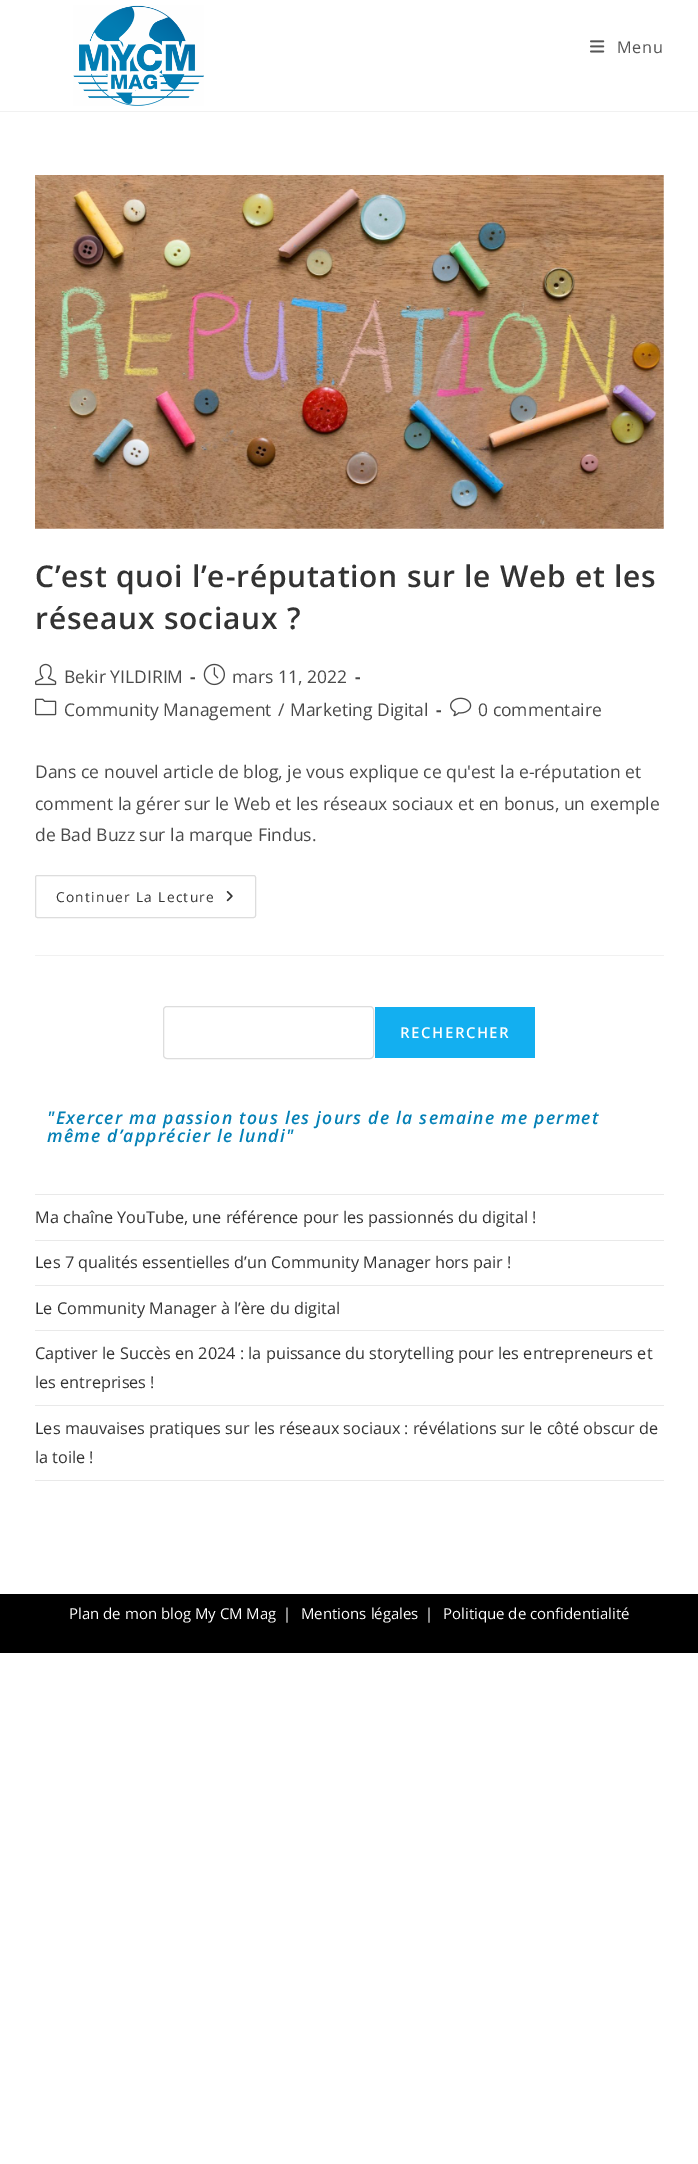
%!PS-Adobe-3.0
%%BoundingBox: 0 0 698 2164
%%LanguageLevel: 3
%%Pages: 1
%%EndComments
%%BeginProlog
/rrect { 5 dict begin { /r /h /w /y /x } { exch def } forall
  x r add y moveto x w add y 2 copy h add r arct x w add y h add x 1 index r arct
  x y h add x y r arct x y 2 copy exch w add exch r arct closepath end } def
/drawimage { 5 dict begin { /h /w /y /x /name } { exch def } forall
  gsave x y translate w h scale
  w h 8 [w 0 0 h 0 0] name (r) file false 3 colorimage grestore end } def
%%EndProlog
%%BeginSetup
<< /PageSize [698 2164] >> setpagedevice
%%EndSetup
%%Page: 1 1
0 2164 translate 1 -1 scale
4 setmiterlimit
1 setgray
0 0 698 2164 rectfill
0.945 setgray
0 111 698 1 rectfill
(images/1.raw) 73 5 131 101 drawimage
(images/2.raw) 590 40 15 13 drawimage
35 955 629 1 rectfill
(images/3.raw) 35 175 629 354 drawimage
(images/4.raw) 35 663 22 23 drawimage
(images/5.raw) 203 663 22 23 drawimage
(images/6.raw) 35 698 22 18 drawimage
(images/7.raw) 450 697 22 20 drawimage
0.867 setgray
35.5 875.5 220 42 2 rrect stroke
(images/8.raw) 226 891 7 11 drawimage
163.5 1006.5 210 52 3.5 rrect stroke
0.075 0.686 0.941 setrgbcolor
375 1007 160 51 rectfill
0.914 setgray
35 1194 629 1 rectfill
35 1240 629 1 rectfill
35 1285 629 1 rectfill
35 1330 629 1 rectfill
35 1405 629 1 rectfill
35 1480 629 1 rectfill
0 setgray
0 1594 698 59 rectfill
/OpenSans-Regular [16.25 0 0 -16.25 0 0] selectfont
0.333 setgray
617 53 moveto 0.75 0 (Menu) ashow
/OpenSans-SemiBold [30 0 0 -30 0 0] selectfont
0.2 setgray
35 587 moveto 0.75 0 (C’est quoi l’e-réputation sur le Web et les) ashow
35 629 moveto 0.75 0 (réseaux sociaux ?) ashow
/OpenSans-Regular [17.5 0 0 -17.5 0 0] selectfont
0.29 setgray
64 683 moveto (Bekir YILDIRIM) show
/OpenSans-Bold [17.5 0 0 -17.5 0 0] selectfont
190 683 moveto (-) show
/OpenSans-Regular [17.5 0 0 -17.5 0 0] selectfont
232 683 moveto (mars 11, 2022) show
/OpenSans-Bold [17.5 0 0 -17.5 0 0] selectfont
355 683 moveto (-) show
/OpenSans-Regular [17.5 0 0 -17.5 0 0] selectfont
64 716 moveto (Community Management) show
278 716 moveto (/) show
290 716 moveto (Marketing Digital) show
/OpenSans-Bold [17.5 0 0 -17.5 0 0] selectfont
436 716 moveto (-) show
/OpenSans-Regular [17.5 0 0 -17.5 0 0] selectfont
478 716 moveto (0 commentaire) show
35 778 moveto (Dans ce nouvel article de blog, je vous explique ce qu'est la e-réputation et) show
35 810 moveto (comment la gérer sur le Web et les réseaux sociaux et en bonus, un exemple) show
35 841 moveto (de Bad Buzz sur la marque Findus.) show
/OpenSans-Regular [13.75 0 0 -13.75 0 0] selectfont
0.2 setgray
56 902 moveto 1.25 0 (Continuer La Lecture) ashow
/OpenSans-SemiBold [15 0 0 -15 0 0] selectfont
1 setgray
400 1038 moveto 1.5 0 (RECHERCHER) ashow
/OpenSans-SemiBoldItalic [17.5 0 0 -17.5 0 0] selectfont
0.012 0.502 0.714 setrgbcolor
47 1124 moveto 1.25 0 ("Exercer ma passion tous les jours de la semaine me permet) ashow
47 1142 moveto 1.25 0 (même d’apprécier le lundi") ashow
/OpenSans-Regular [16.25 0 0 -16.25 0 0] selectfont
0.2 setgray
35 1223 moveto (Ma chaîne YouTube, une référence pour les passionnés du digital !) show
35 1268 moveto (Les 7 qualités essentielles d’un Community Manager hors pair !) show
35 1314 moveto (Le Community Manager à l’ère du digital) show
35 1359 moveto (Captiver le Succès en 2024 : la puissance du storytelling pour les entrepreneurs et) show
35 1388 moveto (les entreprises !) show
35 1434 moveto (Les mauvaises pratiques sur les réseaux sociaux : révélations sur le côté obscur de) show
35 1463 moveto (la toile !) show
/OpenSans-Regular [15 0 0 -15 0 0] selectfont
1 setgray
69 1619 moveto (Plan de mon blog My CM Mag) show
283 1619 moveto (|) show
301 1619 moveto (Mentions légales) show
425 1619 moveto (|) show
443 1619 moveto (Politique de confidentialité) show
showpage
%%EOF
